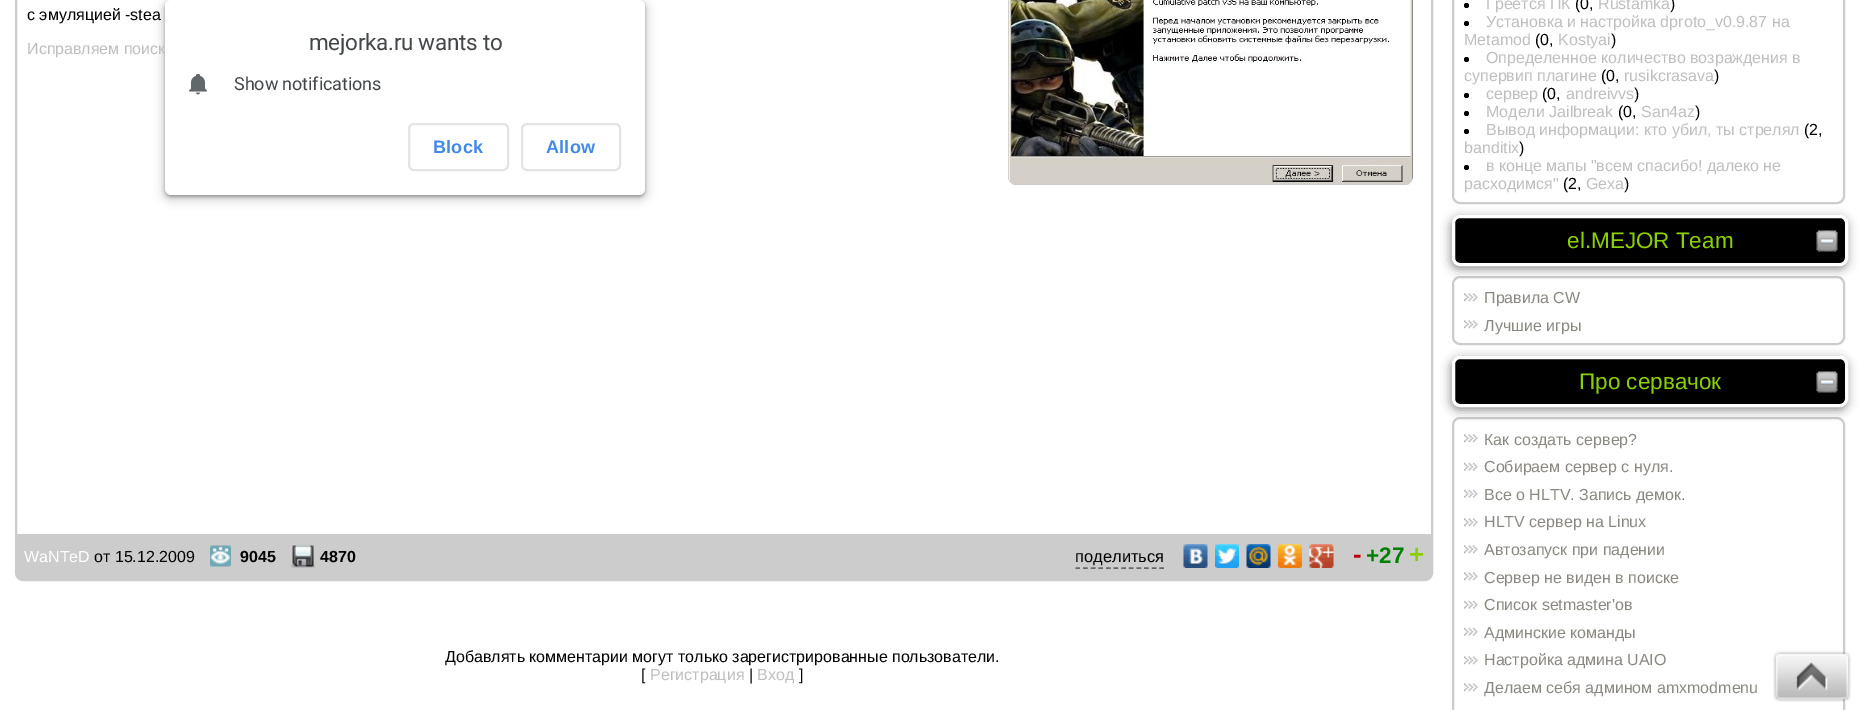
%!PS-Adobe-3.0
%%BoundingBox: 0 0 1859 710
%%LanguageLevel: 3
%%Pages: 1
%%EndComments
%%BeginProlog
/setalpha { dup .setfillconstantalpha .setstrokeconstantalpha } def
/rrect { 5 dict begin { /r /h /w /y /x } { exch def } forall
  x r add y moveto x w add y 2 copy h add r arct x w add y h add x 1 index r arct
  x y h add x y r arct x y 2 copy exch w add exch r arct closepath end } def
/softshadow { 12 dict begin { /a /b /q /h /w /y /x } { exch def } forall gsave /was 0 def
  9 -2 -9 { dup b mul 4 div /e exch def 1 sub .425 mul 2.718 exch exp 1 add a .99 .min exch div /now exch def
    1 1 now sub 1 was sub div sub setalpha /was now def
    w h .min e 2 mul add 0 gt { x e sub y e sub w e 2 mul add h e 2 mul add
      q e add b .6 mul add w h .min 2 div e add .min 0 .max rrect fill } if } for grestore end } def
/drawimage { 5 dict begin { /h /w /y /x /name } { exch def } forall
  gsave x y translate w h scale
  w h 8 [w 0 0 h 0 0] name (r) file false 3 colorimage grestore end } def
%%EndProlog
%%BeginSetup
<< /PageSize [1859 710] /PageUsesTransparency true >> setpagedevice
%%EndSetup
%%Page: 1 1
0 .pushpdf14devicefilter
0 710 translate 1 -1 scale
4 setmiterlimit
1 setgray
0 0 1859 710 rectfill
0.8 setgray
2 setlinewidth
16 -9 1416 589 7 rrect stroke
1008 -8 405 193 8 rrect fill
(images/1.raw) 1008 0 405 184 drawimage
17 534 1414 45 rectfill
(images/2.raw) 210 545 21 22 drawimage
(images/3.raw) 291 545 24 23 drawimage
0.4 setgray
1.5 setlinewidth
[4.5 3.13] 0 setdash
newpath 1075.5 568 moveto 1164 568 lineto stroke
(images/4.raw) 1183 544 25 24 drawimage
(images/5.raw) 1215 544 24 24 drawimage
(images/6.raw) 1246 544 25 24 drawimage
(images/7.raw) 1278 544 24 24 drawimage
(images/8.raw) 1309 544 25 24 drawimage
0.8 setgray
2 setlinewidth
[] 0 setdash
1453 -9 391 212 7 rrect stroke
0 setgray
newpath 1466.5 5.5 2.5 0 360 arc closepath fill
newpath 1466.5 23.5 2.5 0 360 arc closepath fill
newpath 1466.5 59.5 2.5 0 360 arc closepath fill
newpath 1466.5 95.5 2.5 0 360 arc closepath fill
newpath 1466.5 113.5 2.5 0 360 arc closepath fill
newpath 1466.5 131.5 2.5 0 360 arc closepath fill
newpath 1466.5 167.5 2.5 0 360 arc closepath fill
0.8 setgray
1453 277 391 67 7 rrect stroke
0.533 setgray
1451 218 396 51 8 5 1 softshadow
0 setgray
1453.5 216.5 393 48 6.5 rrect gsave fill grestore
1 setgray
3 setlinewidth
stroke
(images/9.raw) 1816 230 22 22 drawimage
(images/10.raw) 1464 293 14 9 drawimage
(images/10.raw) 1464 320 14 9 drawimage
0.8 setgray
2 setlinewidth
1453 418 391 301 7 rrect stroke
0.533 setgray
1451 359 396 51 8 5 1 softshadow
0 setgray
1453.5 357.5 393 48 6.5 rrect gsave fill grestore
1 setgray
3 setlinewidth
stroke
(images/9.raw) 1816 371 22 22 drawimage
(images/10.raw) 1464 434 14 9 drawimage
(images/11.raw) 1464 462 14 9 drawimage
(images/11.raw) 1464 489 14 9 drawimage
(images/10.raw) 1464 518 14 9 drawimage
(images/10.raw) 1464 545 14 9 drawimage
(images/10.raw) 1464 572 14 9 drawimage
(images/11.raw) 1464 600 14 9 drawimage
(images/11.raw) 1464 627 14 9 drawimage
(images/10.raw) 1464 656 14 9 drawimage
(images/10.raw) 1464 683 14 9 drawimage
0 setgray
162 0 486 201 9 4.5 0.15 softshadow
165 2 480 195 6 1.5 0.3 softshadow
(images/13.raw) 1773 651 78 51 drawimage
/LiberationSans-Regular [16 0 0 -16 0 0] selectfont
27 20 moveto (с эмуляцией -stea) show
0.749 setgray
27 54 moveto (Исправляем поиск) show
1 setgray
24 562 moveto (WaNTeD) show
0 setgray
94 562 moveto (от 15.12.2009) show
/LiberationSans-Bold [16 0 0 -16 0 0] selectfont
240 562 moveto (9045) show
320 562 moveto (4870) show
/LiberationSans-Regular [16.5 0 0 -16.5 0 0] selectfont
1075 562 moveto (поделиться) show
/LiberationSans-Bold [26 0 0 -26 0 0] selectfont
0.749 0 0 setrgbcolor
1353 563 moveto (-) show
/LiberationSans-Bold [22.5 0 0 -22.5 0 0] selectfont
0 0.502 0 setrgbcolor
1366 563 moveto (+27) show
/LiberationSans-Bold [26 0 0 -26 0 0] selectfont
0.541 0.812 0 setrgbcolor
1409 563 moveto (+) show
/LiberationSans-Regular [16 0 0 -16 0 0] selectfont
0 setgray
445 662 moveto (Добавлять комментарии могут только зарегистрированные пользователи.) show
641 680 moveto ([) show
0.749 setgray
650 680 moveto (Регистрация) show
0 setgray
749 680 moveto (|) show
0.749 setgray
757 680 moveto (Вход) show
0 setgray
799 680 moveto (]) show
0.749 setgray
1486 9 moveto (Греется ПК) show
0 setgray
1575 9 moveto (\(0,) show
0.749 setgray
1598 9 moveto (Rustamka) show
0 setgray
1670 9 moveto (\)) show
0.749 setgray
1486 27 moveto (Установка и настройка dproto_v0.9.87 на) show
1464 45 moveto (Metamod) show
0 setgray
1535 45 moveto (\(0,) show
0.749 setgray
1558 45 moveto (Kostyai) show
0 setgray
1611 45 moveto (\)) show
0.749 setgray
1486 63 moveto (Определенное количество возраждения в) show
1464 81 moveto (супервип плагине) show
0 setgray
1601 81 moveto (\(0,) show
0.749 setgray
1624 81 moveto (rusikcrasava) show
0 setgray
1714 81 moveto (\)) show
0.749 setgray
1486 99 moveto (сервер) show
0 setgray
1542 99 moveto (\(0,) show
0.749 setgray
1566 99 moveto (andreivvs) show
0 setgray
1634 99 moveto (\)) show
0.749 setgray
1486 117 moveto (Модели Jailbreak) show
0 setgray
1618 117 moveto (\(0,) show
0.749 setgray
1641 117 moveto (San4az) show
0 setgray
1695 117 moveto (\)) show
0.749 setgray
1486 135 moveto (Вывод информации: кто убил, ты стрелял) show
0 setgray
1804 135 moveto (\(2,) show
0.749 setgray
1464 153 moveto (banditix) show
0 setgray
1519 153 moveto (\)) show
0.749 setgray
1486 171 moveto (в конце мапы "всем спасибо! далеко не) show
1464 189 moveto (расходимся") show
0 setgray
1563 189 moveto (\(2,) show
0.749 setgray
1586 189 moveto (Gexa) show
0 setgray
1624 189 moveto (\)) show
/LiberationSans-Regular [22.5 0 0 -22.5 0 0] selectfont
0.541 0.812 0 setrgbcolor
1567 248 moveto (el.MEJOR Team) show
/LiberationSans-Regular [16 0 0 -16 0 0] selectfont
0.545 0.533 0.506 setrgbcolor
1484 303 moveto (Правила CW) show
1484 331 moveto (Лучшие игры) show
/LiberationSans-Regular [22.5 0 0 -22.5 0 0] selectfont
0.541 0.812 0 setrgbcolor
1579 389 moveto (Про сервачок) show
/LiberationSans-Regular [16 0 0 -16 0 0] selectfont
0.545 0.533 0.506 setrgbcolor
1484 445 moveto (Как создать сервер?) show
1484 472 moveto (Собираем сервер с нуля.) show
1484 500 moveto (Все о HLTV. Запись демок.) show
1484 527 moveto (HLTV сервер на Linux) show
1484 555 moveto (Автозапуск при падении) show
1484 583 moveto (Сервер не виден в поиске) show
1484 610 moveto (Список setmaster'ов) show
1484 638 moveto (Админские команды) show
1484 665 moveto (Настройка админа UAIO) show
1484 693 moveto (Делаем себя админом amxmodmenu) show
1 setgray
165 0 480 195 6 rrect fill
/Roboto-Regular [22.5 0 0 -22.5 0 0] selectfont
0.263 0.278 0.286 setrgbcolor
309 50 moveto -0.3 0 (mejorka.ru wants to) ashow
(images/12.raw) 189 74 18 21 drawimage
/Roboto-Regular [18 0 0 -18 0 0] selectfont
234 90 moveto -0.1 0 (Show notifications) ashow
0.894 setgray
2 setlinewidth
409 124 99 46 5 rrect stroke
/LiberationSans-Bold [18 0 0 -18 0 0] selectfont
0.251 0.537 0.91 setrgbcolor
433 153 moveto 0.25 0 (Block) ashow
0.894 setgray
522 124 98 46 5 rrect stroke
0.251 0.537 0.91 setrgbcolor
546 153 moveto 0.25 0 (Allow) ashow
.poppdf14devicefilter showpage
%%EOF
